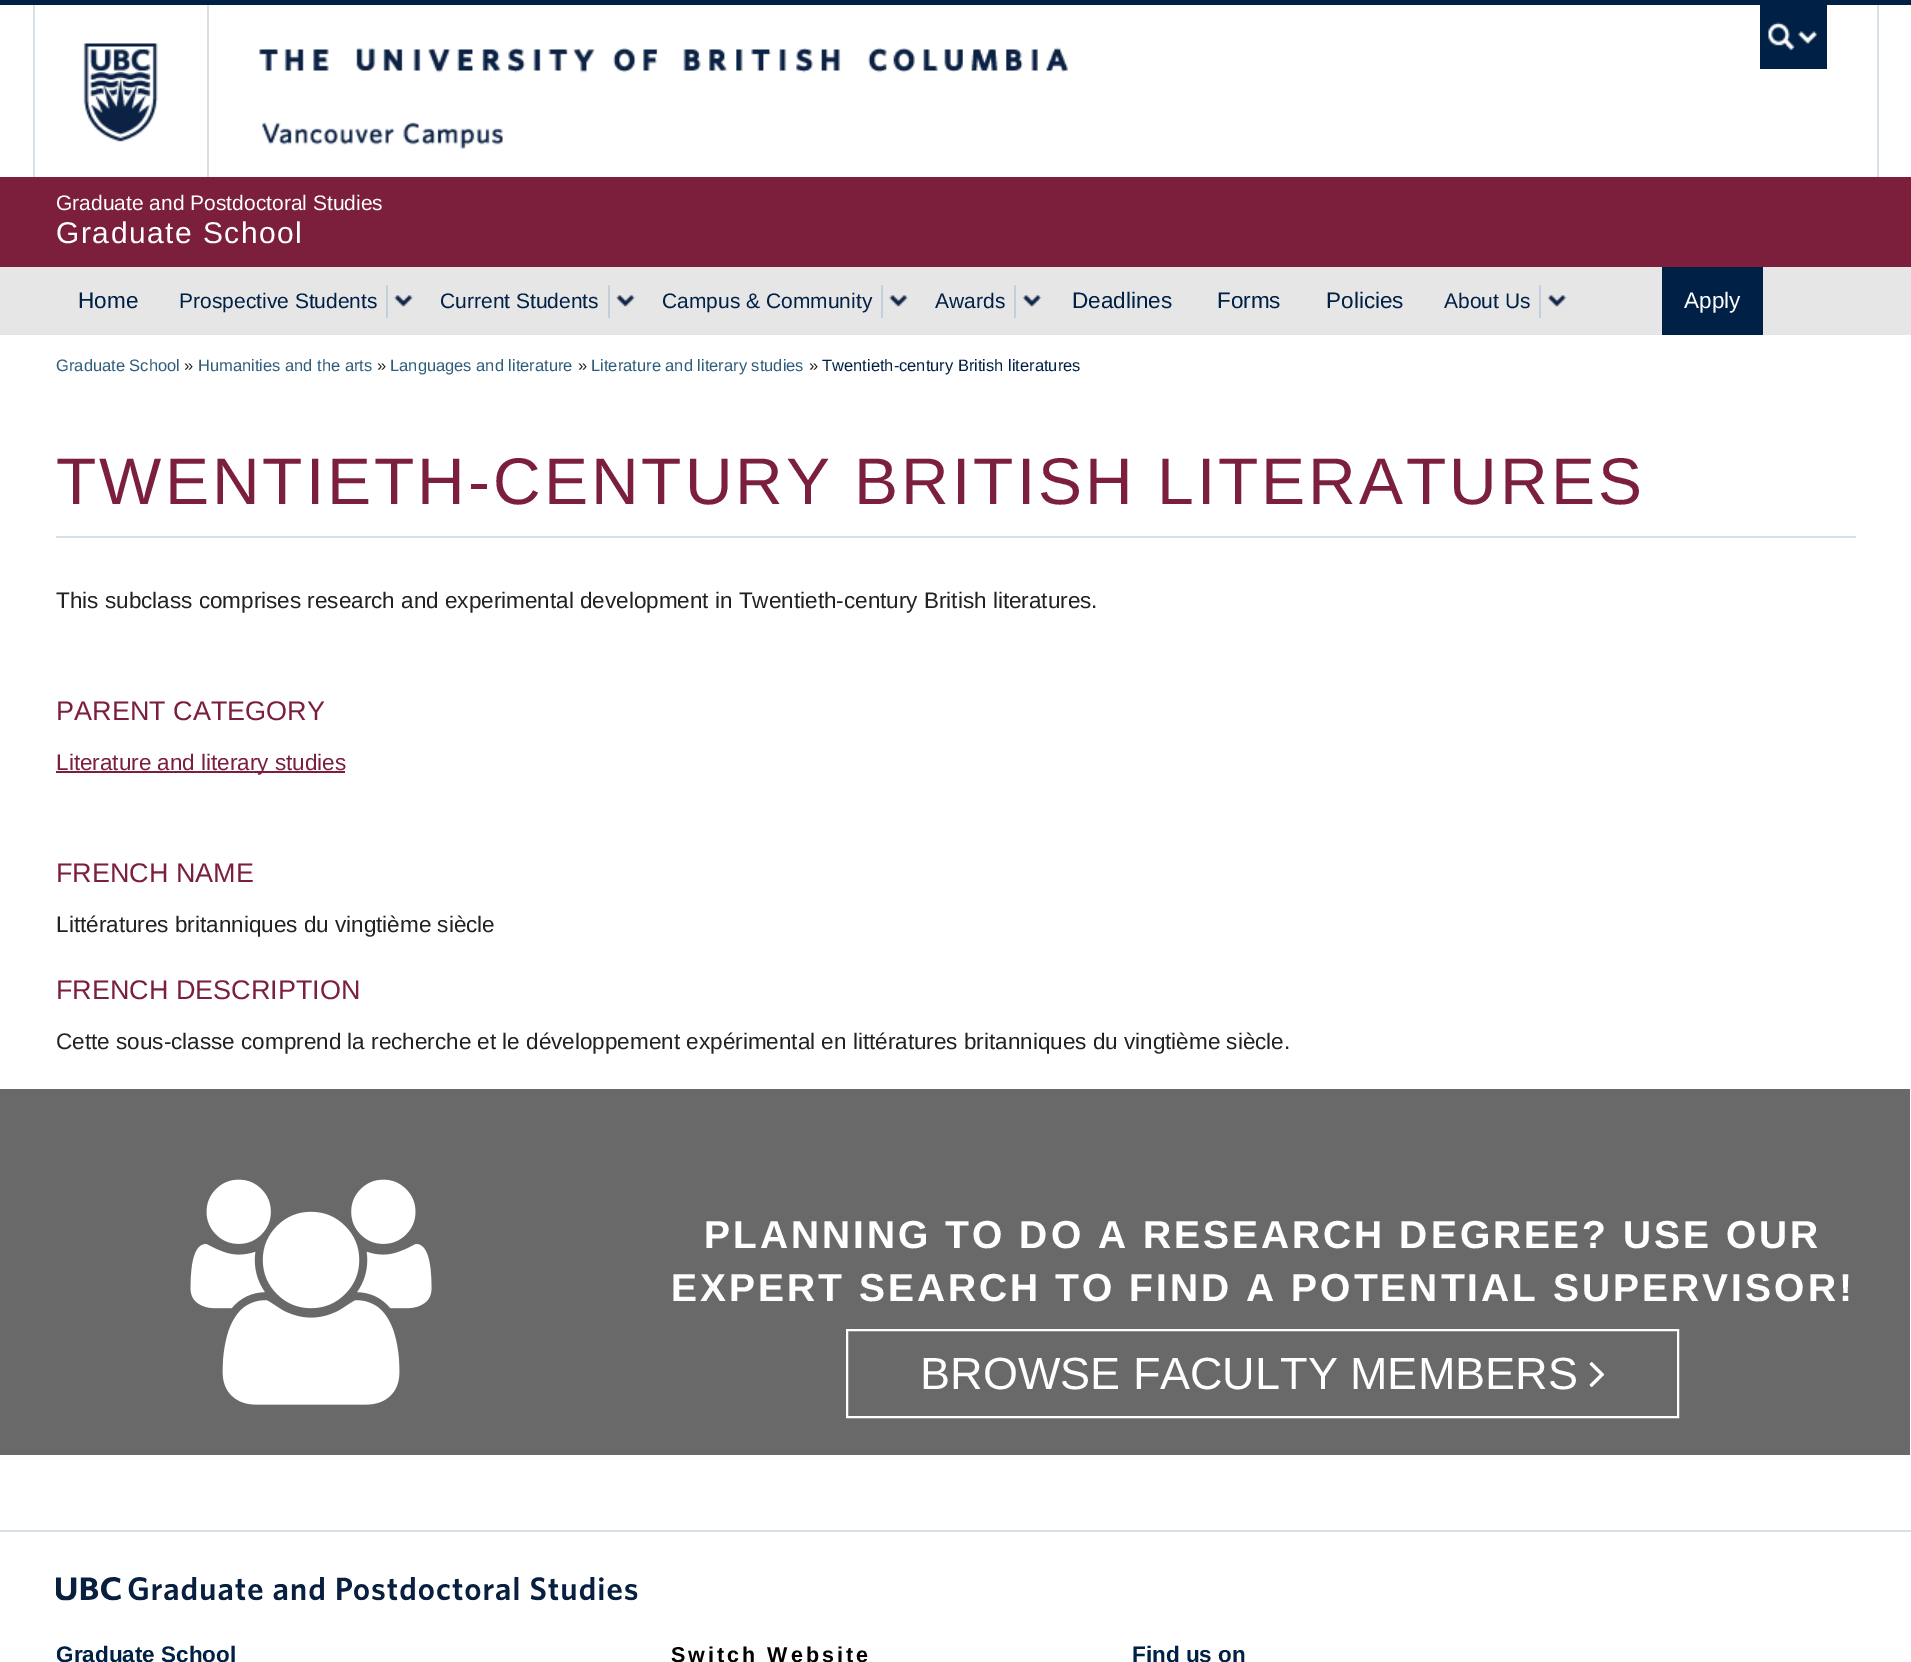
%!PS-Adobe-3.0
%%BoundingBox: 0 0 1911 1662
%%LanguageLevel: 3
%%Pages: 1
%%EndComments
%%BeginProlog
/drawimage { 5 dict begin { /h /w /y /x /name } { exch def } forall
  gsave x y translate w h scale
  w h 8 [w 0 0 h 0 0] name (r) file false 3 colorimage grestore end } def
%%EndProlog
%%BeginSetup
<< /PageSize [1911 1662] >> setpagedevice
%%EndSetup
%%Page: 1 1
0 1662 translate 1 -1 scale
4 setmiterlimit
1 setgray
0 0 1911 1662 rectfill
0 0.129 0.271 setrgbcolor
0 0 1911 5 rectfill
0.843 0.878 0.906 setrgbcolor
1877 5 2 172 rectfill
33 5 2 172 rectfill
(images/1.raw) 83 43 75 99 drawimage
(images/2.raw) 259 47 809 26 drawimage
207 5 2 172 rectfill
0 0.129 0.271 setrgbcolor
1760 5 67 64 rectfill
(images/3.raw) 1768 22 49 29 drawimage
(images/4.raw) 262 122 241 27 drawimage
0.486 0.122 0.239 setrgbcolor
0 177 1911 90 rectfill
0.902 setgray
0 267 1911 68 rectfill
0.765 0.816 0.859 setrgbcolor
386 285 2 33 rectfill
(images/5.raw) 394 295 19 12 drawimage
608 285 2 33 rectfill
(images/5.raw) 616 295 19 12 drawimage
881 285 2 33 rectfill
(images/6.raw) 889 295 19 12 drawimage
1014 285 2 33 rectfill
(images/7.raw) 1022 295 20 12 drawimage
1539 285 2 33 rectfill
(images/7.raw) 1547 295 20 12 drawimage
0 0.129 0.271 setrgbcolor
1662 267 101 68 rectfill
0.843 0.878 0.906 setrgbcolor
56 536 1800 2 rectfill
0.486 0.122 0.239 setrgbcolor
56 771 289 2 rectfill
0.412 setgray
0 1089 1910 366 rectfill
(images/8.raw) 190 1179 242 226 drawimage
1 setgray
2 setlinewidth
847 1330 831 87 rectstroke
(images/9.raw) 1589 1362 16 25 drawimage
0.843 0.878 0.906 setrgbcolor
0 1530 1911 2 rectfill
(images/10.raw) 56 1577 582 24 drawimage
/LiberationSans-Regular [21 0 0 -21 0 0] selectfont
1 setgray
56 210 moveto (Graduate and Postdoctoral Studies) show
/LiberationSans-Regular [30 0 0 -30 0 0] selectfont
56 243 moveto 1.5 0 (Graduate School) ashow
/LiberationSans-Regular [22.5 0 0 -22.5 0 0] selectfont
0 0.129 0.271 setrgbcolor
78 308 moveto (Home) show
/LiberationSans-Regular [21 0 0 -21 0 0] selectfont
179 308 moveto (Prospective Students) show
440 308 moveto (Current Students) show
662 308 moveto (Campus & Community) show
935 308 moveto (Awards) show
/LiberationSans-Regular [22.5 0 0 -22.5 0 0] selectfont
1072 308 moveto (Deadlines) show
1217 308 moveto (Forms) show
1326 308 moveto (Policies) show
/LiberationSans-Regular [21 0 0 -21 0 0] selectfont
1444 308 moveto (About Us) show
/LiberationSans-Regular [22.5 0 0 -22.5 0 0] selectfont
1 setgray
1684 308 moveto (Apply) show
/LiberationSans-Regular [16.5 0 0 -16.5 0 0] selectfont
0.184 0.365 0.486 setrgbcolor
56 371 moveto (Graduate School) show
0.133 setgray
184 371 moveto (») show
0.184 0.365 0.486 setrgbcolor
198 371 moveto (Humanities and the arts) show
0.133 setgray
377 371 moveto (») show
0.184 0.365 0.486 setrgbcolor
390 371 moveto (Languages and literature) show
0.133 setgray
578 371 moveto (») show
0.184 0.365 0.486 setrgbcolor
591 371 moveto (Literature and literary studies) show
0.133 setgray
809 371 moveto (») show
0 0.129 0.271 setrgbcolor
822 371 moveto (Twentieth-century British literatures) show
/LiberationSans-Regular [66 0 0 -66 0 0] selectfont
0.486 0.122 0.239 setrgbcolor
56 504 moveto 3 0 (TWENTIETH-CENTURY BRITISH LITERATURES) ashow
/LiberationSans-Regular [22.5 0 0 -22.5 0 0] selectfont
0.133 setgray
56 608 moveto (This subclass comprises research and experimental development in Twentieth-century British literatures.) show
/LiberationSans-Regular [27 0 0 -27 0 0] selectfont
0.486 0.122 0.239 setrgbcolor
56 720 moveto (PARENT CATEGORY) show
/LiberationSans-Regular [22.5 0 0 -22.5 0 0] selectfont
56 770 moveto (Literature and literary studies) show
/LiberationSans-Regular [27 0 0 -27 0 0] selectfont
56 882 moveto (FRENCH NAME) show
/LiberationSans-Regular [22.5 0 0 -22.5 0 0] selectfont
0.133 setgray
56 932 moveto (Littératures britanniques du vingtième siècle) show
/LiberationSans-Regular [27 0 0 -27 0 0] selectfont
0.486 0.122 0.239 setrgbcolor
56 999 moveto (FRENCH DESCRIPTION) show
/LiberationSans-Regular [22.5 0 0 -22.5 0 0] selectfont
0.133 setgray
56 1049 moveto (Cette sous-classe comprend la recherche et le développement expérimental en littératures britanniques du vingtième siècle.) show
/LiberationSans-Bold [39 0 0 -39 0 0] selectfont
1 setgray
704 1248 moveto 3 0 (PLANNING TO DO A RESEARCH DEGREE? USE OUR) ashow
671 1301 moveto 3 0 (EXPERT SEARCH TO FIND A POTENTIAL SUPERVISOR!) ashow
/LiberationSans-Regular [45 0 0 -45 0 0] selectfont
920 1389 moveto (BROWSE FACULTY MEMBERS) show
/LiberationSans-Bold [22.5 0 0 -22.5 0 0] selectfont
0 0.129 0.271 setrgbcolor
56 1662 moveto (Graduate School) show
/LiberationSans-Bold [21.5 0 0 -21.5 0 0] selectfont
0 setgray
671 1662 moveto 3 0 (Switch Website) ashow
/LiberationSans-Bold [22.5 0 0 -22.5 0 0] selectfont
0 0.129 0.271 setrgbcolor
1132 1662 moveto (Find us on) show
showpage
%%EOF
